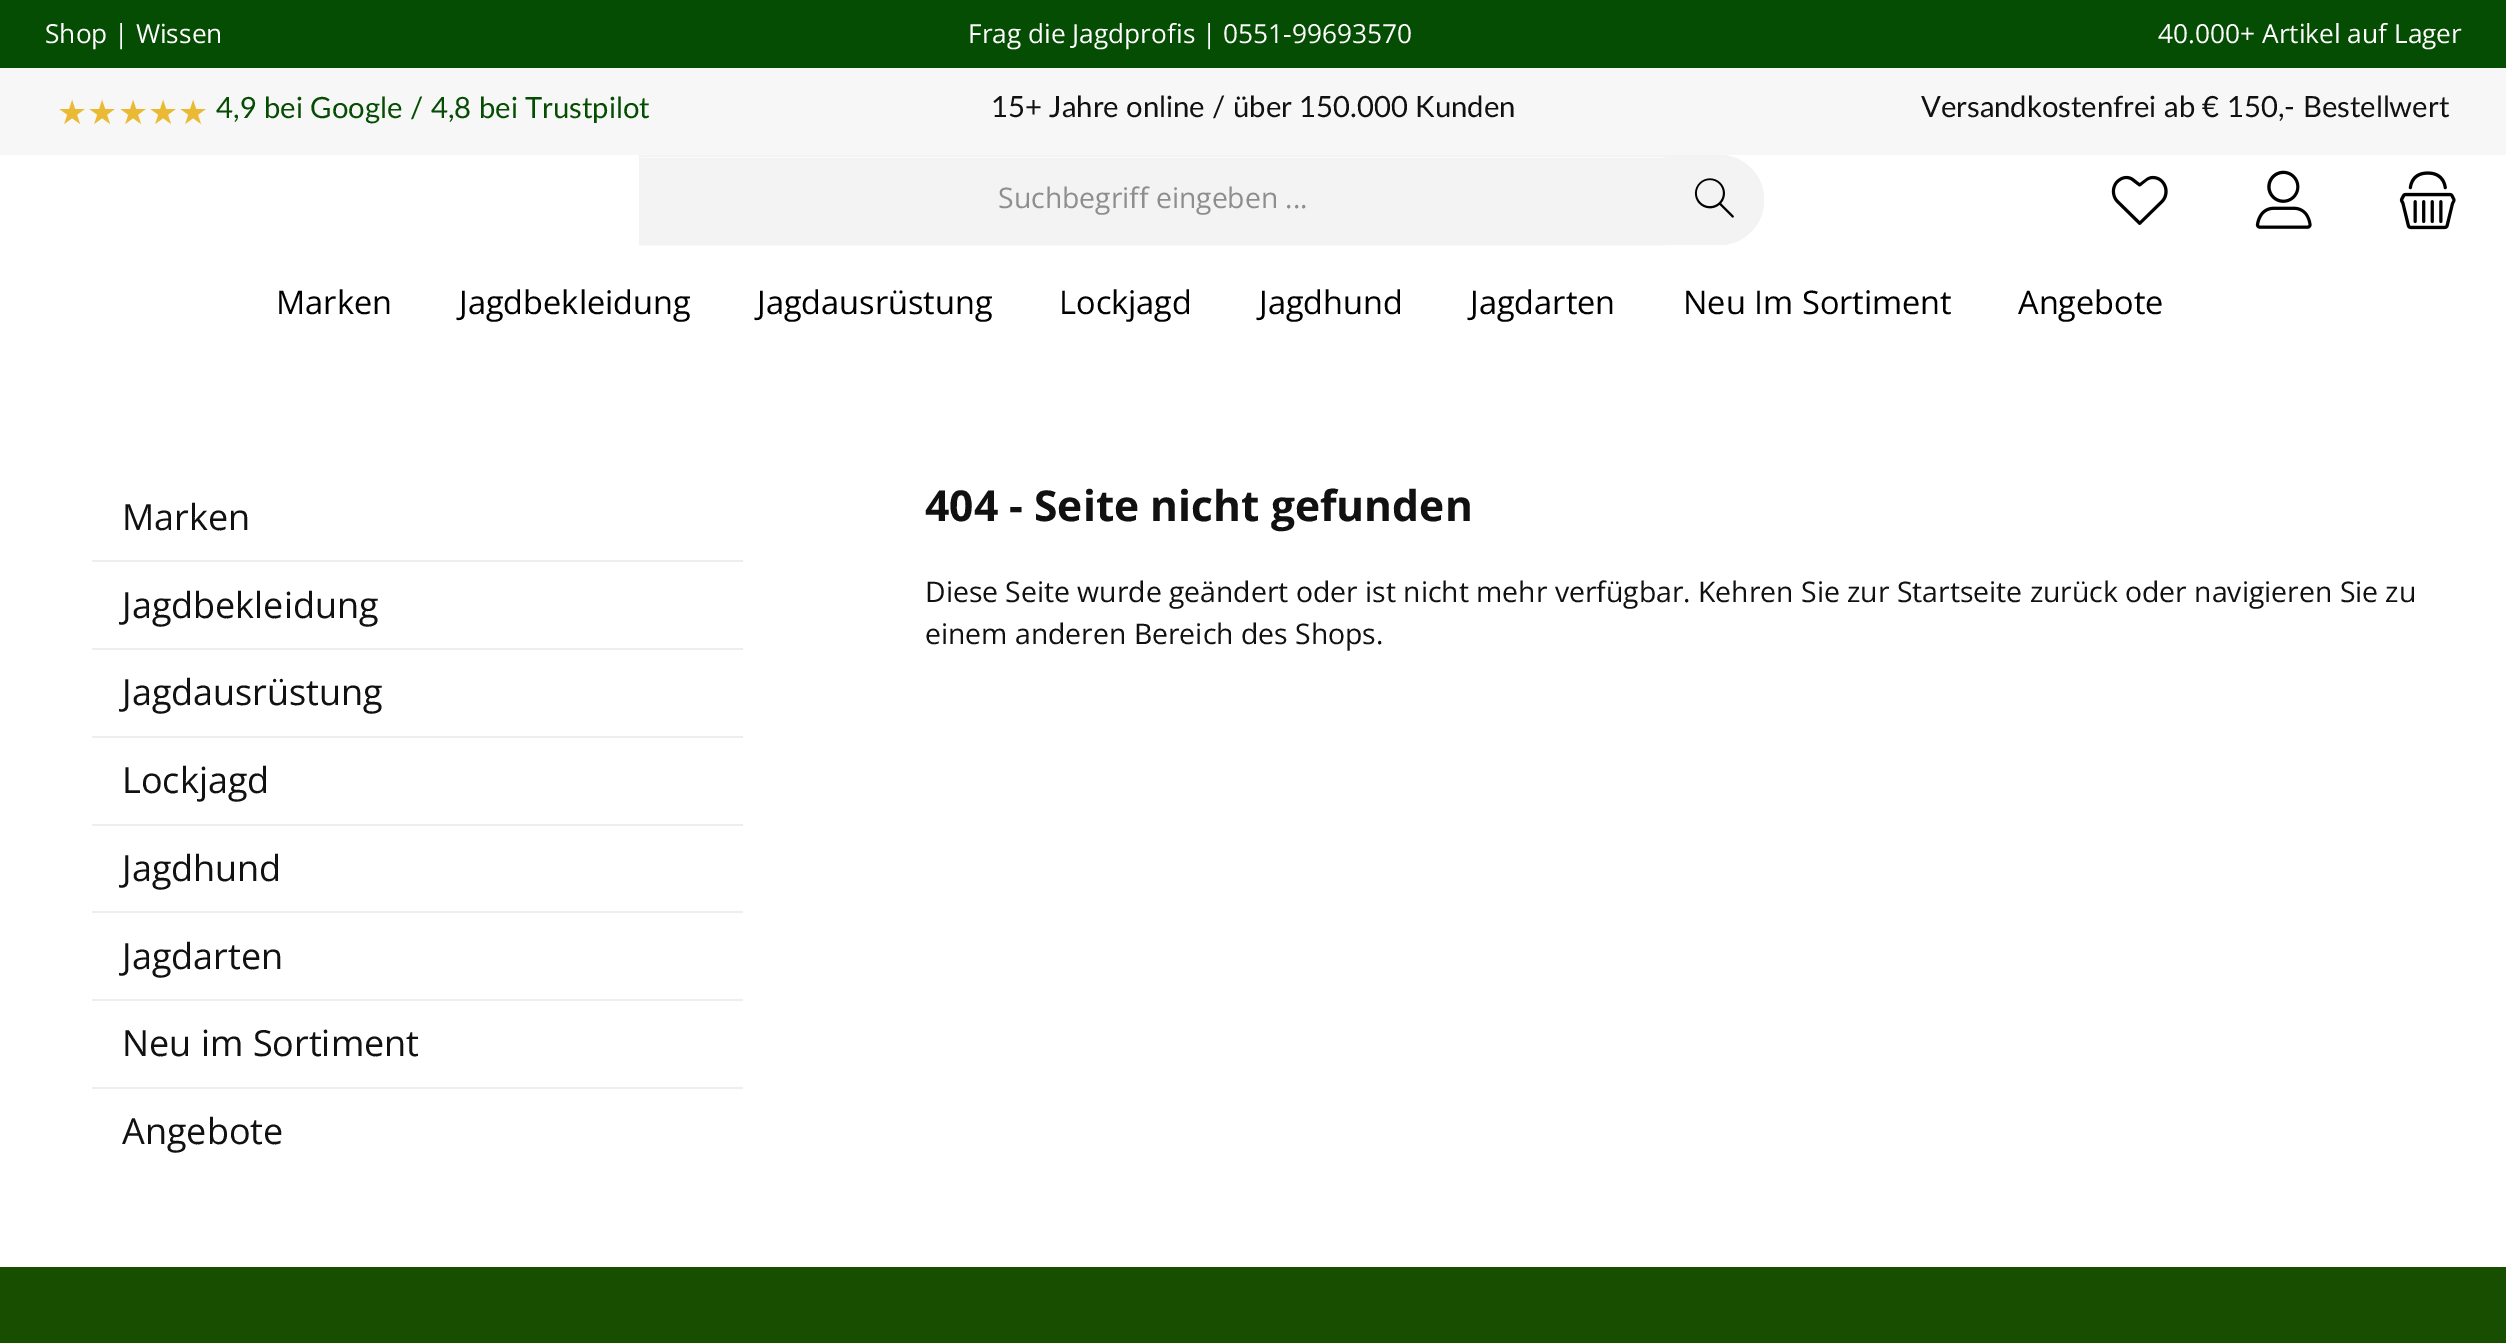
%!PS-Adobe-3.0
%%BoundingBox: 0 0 2506 1343
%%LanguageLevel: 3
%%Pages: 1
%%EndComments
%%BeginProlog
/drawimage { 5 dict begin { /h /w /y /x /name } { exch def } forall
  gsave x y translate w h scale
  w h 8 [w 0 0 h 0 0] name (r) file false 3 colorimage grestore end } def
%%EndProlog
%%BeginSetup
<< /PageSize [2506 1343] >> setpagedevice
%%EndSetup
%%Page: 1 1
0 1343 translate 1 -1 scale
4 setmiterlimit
1 setgray
0 0 2506 1343 rectfill
0.02 0.302 0.012 setrgbcolor
0 0 2506 68 rectfill
0.969 setgray
0 68 2506 87 rectfill
0.953 setgray
641 158 1024 85 rectfill
2 setlinewidth
640 156 1026 88 rectstroke
newpath 1665 155 moveto 1719 155 lineto 1744 155 1764 175 1764 200 curveto 1764 225 1744 245 1719 245 curveto 1665 245 lineto closepath fill
newpath 1665 155 moveto 1719 155 lineto 1744 155 1764 175 1764 200 curveto 1764 225 1744 245 1719 245 curveto 1665 245 lineto closepath 1665 158 moveto 1719 158 lineto 1743 158 1762 177 1762 200 curveto 1762 224 1743 243 1719 243 curveto 1665 243 lineto closepath eofill
(images/1.raw) 1694 178 40 40 drawimage
(images/2.raw) 2111 175 57 50 drawimage
(images/3.raw) 2255 170 57 59 drawimage
(images/4.raw) 2399 171 57 59 drawimage
0.933 setgray
92 560 651 2 rectfill
92 648 651 2 rectfill
92 736 651 2 rectfill
92 824 651 2 rectfill
92 911 651 2 rectfill
92 999 651 2 rectfill
92 1087 651 2 rectfill
0.09 0.306 0 setrgbcolor
0 1267 2506 76 rectfill
/OpenSans-Regular [26.3 0 0 -26.3 0 0] selectfont
1 setgray
45 43 moveto (Shop | Wissen) show
968 43 moveto (Frag die Jagdprofis | 0551-99693570) show
2158 43 moveto (40.000+ Artikel auf Lager) show
/DejaVuSans-Regular [33.75 0 0 -33.75 0 0] selectfont
0.922 0.729 0.204 setrgbcolor
57 124 moveto (★★★★★) show
/Lato-Regular [29.25 0 0 -29.25 0 0] selectfont
0.02 0.302 0.012 setrgbcolor
216 118 moveto (4,9 bei Google / 4,8 bei Trustpilot) show
0.067 setgray
991 117 moveto (15+ Jahre online / über 150.000 Kunden) show
1921 117 moveto (Versandkostenfrei ab € 150,- Bestellwert) show
/OpenSans-Regular [28.35 0 0 -28.35 0 0] selectfont
0.557 setgray
998 208 moveto (Suchbegriff eingeben ...) show
/OpenSans-Regular [32.5 0 0 -32.5 0 0] selectfont
0 setgray
276 314 moveto (Marken) show
459 314 moveto (Jagdbekleidung) show
757 314 moveto (Jagdausrüstung) show
1059 314 moveto (Lockjagd) show
1259 314 moveto (Jagdhund) show
1470 314 moveto (Jagdarten) show
1683 314 moveto (Neu Im Sortiment) show
2018 314 moveto (Angebote) show
/OpenSans-Regular [36 0 0 -36 0 0] selectfont
0.067 setgray
122 530 moveto (Marken) show
122 618 moveto (Jagdbekleidung) show
122 705 moveto (Jagdausrüstung) show
122 793 moveto (Lockjagd) show
122 881 moveto (Jagdhund) show
122 969 moveto (Jagdarten) show
122 1056 moveto (Neu im Sortiment) show
122 1144 moveto (Angebote) show
/OpenSans-Bold [42.6 0 0 -42.6 0 0] selectfont
925 521 moveto (404 - Seite nicht gefunden) show
/OpenSans-Regular [28.35 0 0 -28.35 0 0] selectfont
925 602 moveto (Diese Seite wurde geändert oder ist nicht mehr verfügbar. Kehren Sie zur Startseite zurück oder navigieren Sie zu) show
925 644 moveto (einem anderen Bereich des Shops.) show
showpage
%%EOF
